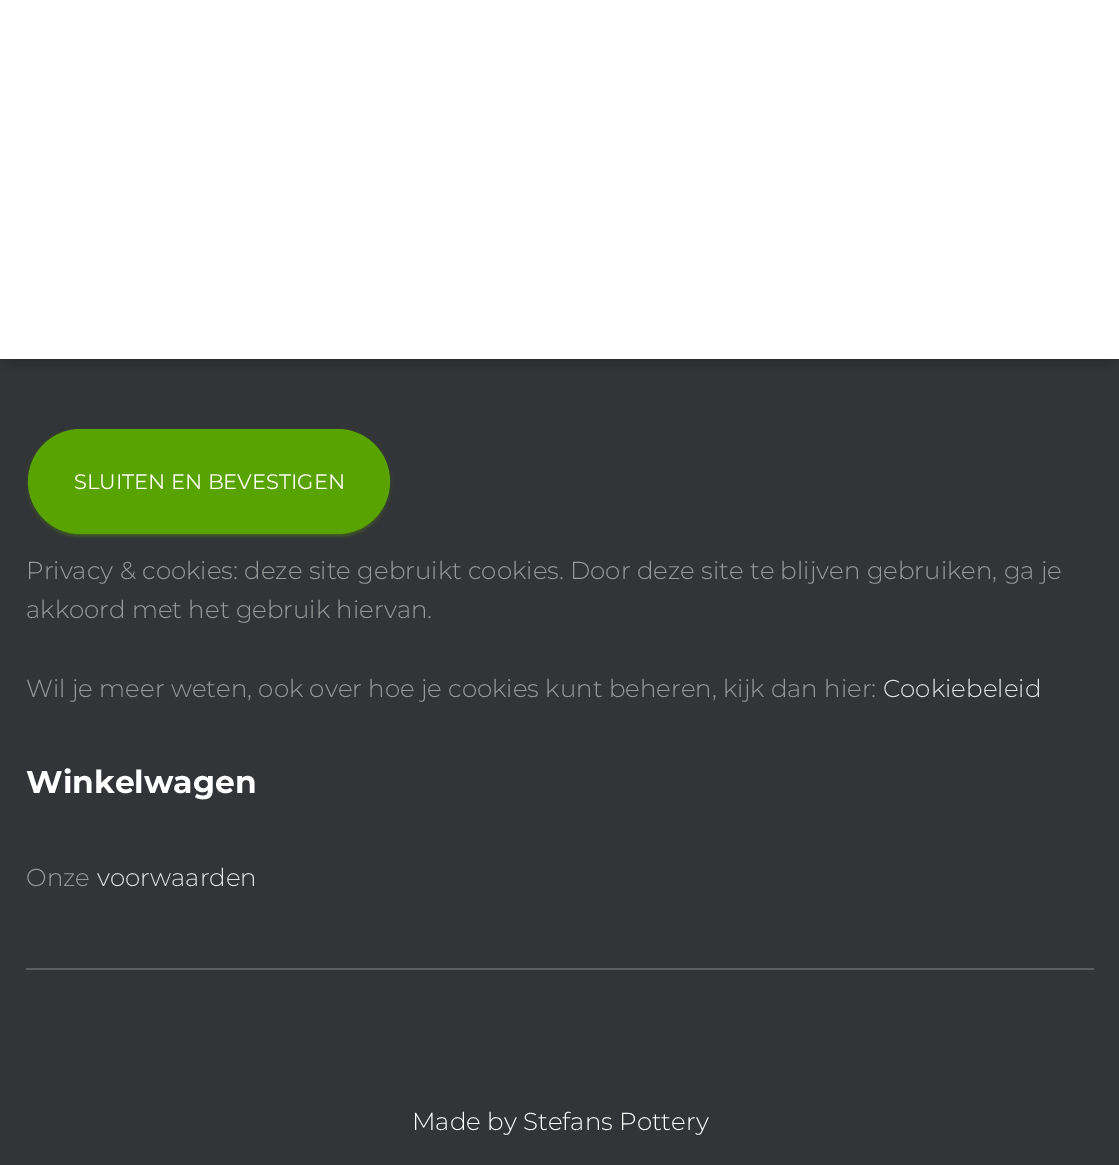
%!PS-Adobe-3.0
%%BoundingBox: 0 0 1119 1165
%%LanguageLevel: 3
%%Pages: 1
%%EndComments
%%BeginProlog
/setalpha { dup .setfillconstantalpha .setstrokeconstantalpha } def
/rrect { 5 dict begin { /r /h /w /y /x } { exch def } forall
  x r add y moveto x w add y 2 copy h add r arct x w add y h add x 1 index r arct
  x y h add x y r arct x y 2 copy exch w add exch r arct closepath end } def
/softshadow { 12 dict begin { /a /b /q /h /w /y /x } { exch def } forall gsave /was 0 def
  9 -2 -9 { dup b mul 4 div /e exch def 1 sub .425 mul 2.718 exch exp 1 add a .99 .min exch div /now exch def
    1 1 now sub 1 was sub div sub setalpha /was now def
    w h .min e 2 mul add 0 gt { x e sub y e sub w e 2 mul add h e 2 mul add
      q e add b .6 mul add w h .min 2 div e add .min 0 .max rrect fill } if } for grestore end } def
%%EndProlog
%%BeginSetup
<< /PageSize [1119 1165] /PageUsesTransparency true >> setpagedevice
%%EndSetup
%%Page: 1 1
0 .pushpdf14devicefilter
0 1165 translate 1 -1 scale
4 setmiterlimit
0.196 0.204 0.216 setrgbcolor
0 0 1119 1165 rectfill
0 setgray
9 12 1102 352 0 9 0.2 softshadow
1 setgray
0 0 1119 359 rectfill
0.349 0.639 0 setrgbcolor
28 431 362 105 52.5 4.5 0.12 softshadow
32 438 355 98 49 1 0.2 softshadow
28 432 362 105 52.5 2 0.14 softshadow
28 429 362 105 52.5 rrect fill
0.357 0.365 0.373 setrgbcolor
26 968 1068 2 rectfill
/Montserrat-Regular [21 0 0 -21 0 0] selectfont
1 setgray
74 489 moveto (SLUITEN EN BEVESTIGEN) show
/Montserrat-Light [24.5 0 0 -24.5 0 0] selectfont
0.6 setgray
26 579 moveto (Privacy & cookies: deze site gebruikt cookies. Door deze site te blijven gebruiken, ga je) show
26 618 moveto (akkoord met het gebruik hiervan.) show
26 697 moveto (Wil je meer weten, ook over hoe je cookies kunt beheren, kijk dan hier:) show
0.886 0.89 0.89 setrgbcolor
883 697 moveto (Cookiebeleid) show
/Montserrat-Bold [31.5 0 0 -31.5 0 0] selectfont
1 setgray
26 793 moveto (Winkelwagen) show
/Montserrat-Light [24.5 0 0 -24.5 0 0] selectfont
0.6 setgray
26 886 moveto (Onze) show
0.886 0.89 0.89 setrgbcolor
97 886 moveto (voorwaarden) show
1 setgray
412 1130 moveto (Made by Stefans Pottery) show
.poppdf14devicefilter showpage
%%EOF
